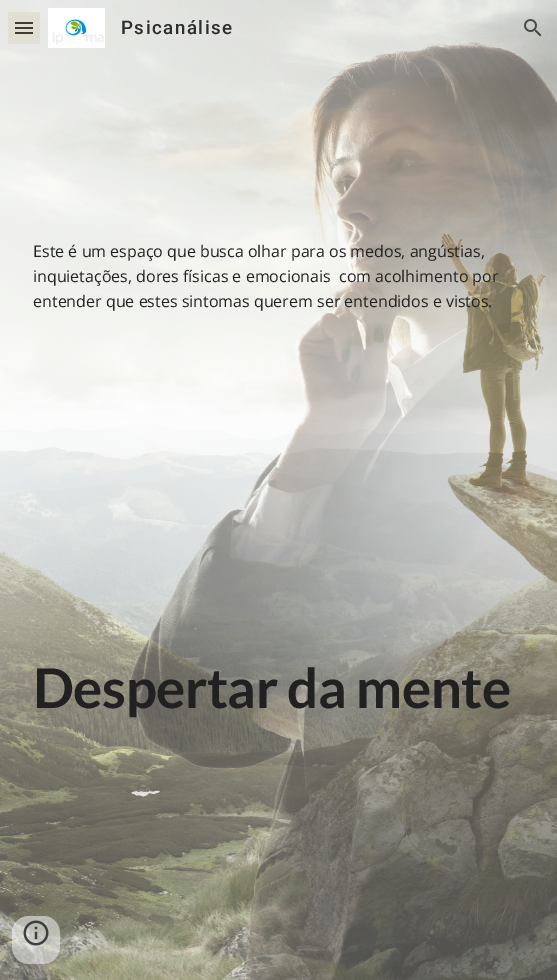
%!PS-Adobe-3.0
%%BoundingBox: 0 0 557 980
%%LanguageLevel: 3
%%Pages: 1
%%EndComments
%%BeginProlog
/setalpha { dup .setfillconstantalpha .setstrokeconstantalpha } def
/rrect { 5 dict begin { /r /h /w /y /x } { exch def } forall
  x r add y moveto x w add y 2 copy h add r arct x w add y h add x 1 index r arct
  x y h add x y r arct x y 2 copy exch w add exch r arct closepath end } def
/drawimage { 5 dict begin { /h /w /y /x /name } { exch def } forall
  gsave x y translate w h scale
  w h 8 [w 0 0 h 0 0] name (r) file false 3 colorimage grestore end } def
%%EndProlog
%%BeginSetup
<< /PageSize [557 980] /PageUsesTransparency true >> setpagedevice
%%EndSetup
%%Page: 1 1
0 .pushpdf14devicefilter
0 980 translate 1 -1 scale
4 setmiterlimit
1 setgray
0 0 557 980 rectfill
(images/3.raw) 0 0 557 980 drawimage
0.18 0.184 0.18 setrgbcolor
15 22 18 2 rectfill
15 27 18 2 rectfill
15 32 18 2 rectfill
0.12 setalpha
0.718 0.6 0.318 setrgbcolor
8 12 32 32 rectfill
1 setalpha
(images/1.raw) 48 8 57 40 drawimage
(images/2.raw) 524 19 18 18 drawimage
0.5 setalpha
1 setgray
12 916 48 48 17 rrect fill
1 setalpha
(images/4.raw) 23 920 26 26 drawimage
/Roboto-Medium [18.75 0 0 -18.75 0 0] selectfont
0.176 0.18 0.176 setrgbcolor
121 34 moveto 1.5 0 (Psicanálise) ashow
/OpenSans-Regular [16 0 0 -16 0 0] selectfont
0.129 setgray
33 257 moveto (Este é um espaço que busca olhar para os medos, angústias,) show
33 282 moveto (inquietações, dores físicas e emocionais  com acolhimento por) show
33 307 moveto (entender que estes sintomas querem ser entendidos e vistos.) show
/Lato-Bold [54.75 0 0 -54.75 0 0] selectfont
33 708 moveto -0.5 0 (Despertar da mente) ashow
/GoogleSans-Medium [14 0 0 -14 0 0] selectfont
0.922 0.929 0.922 setrgbcolor
52 42 moveto (ip) show
85 42 moveto (ma) show
.poppdf14devicefilter showpage
%%EOF
